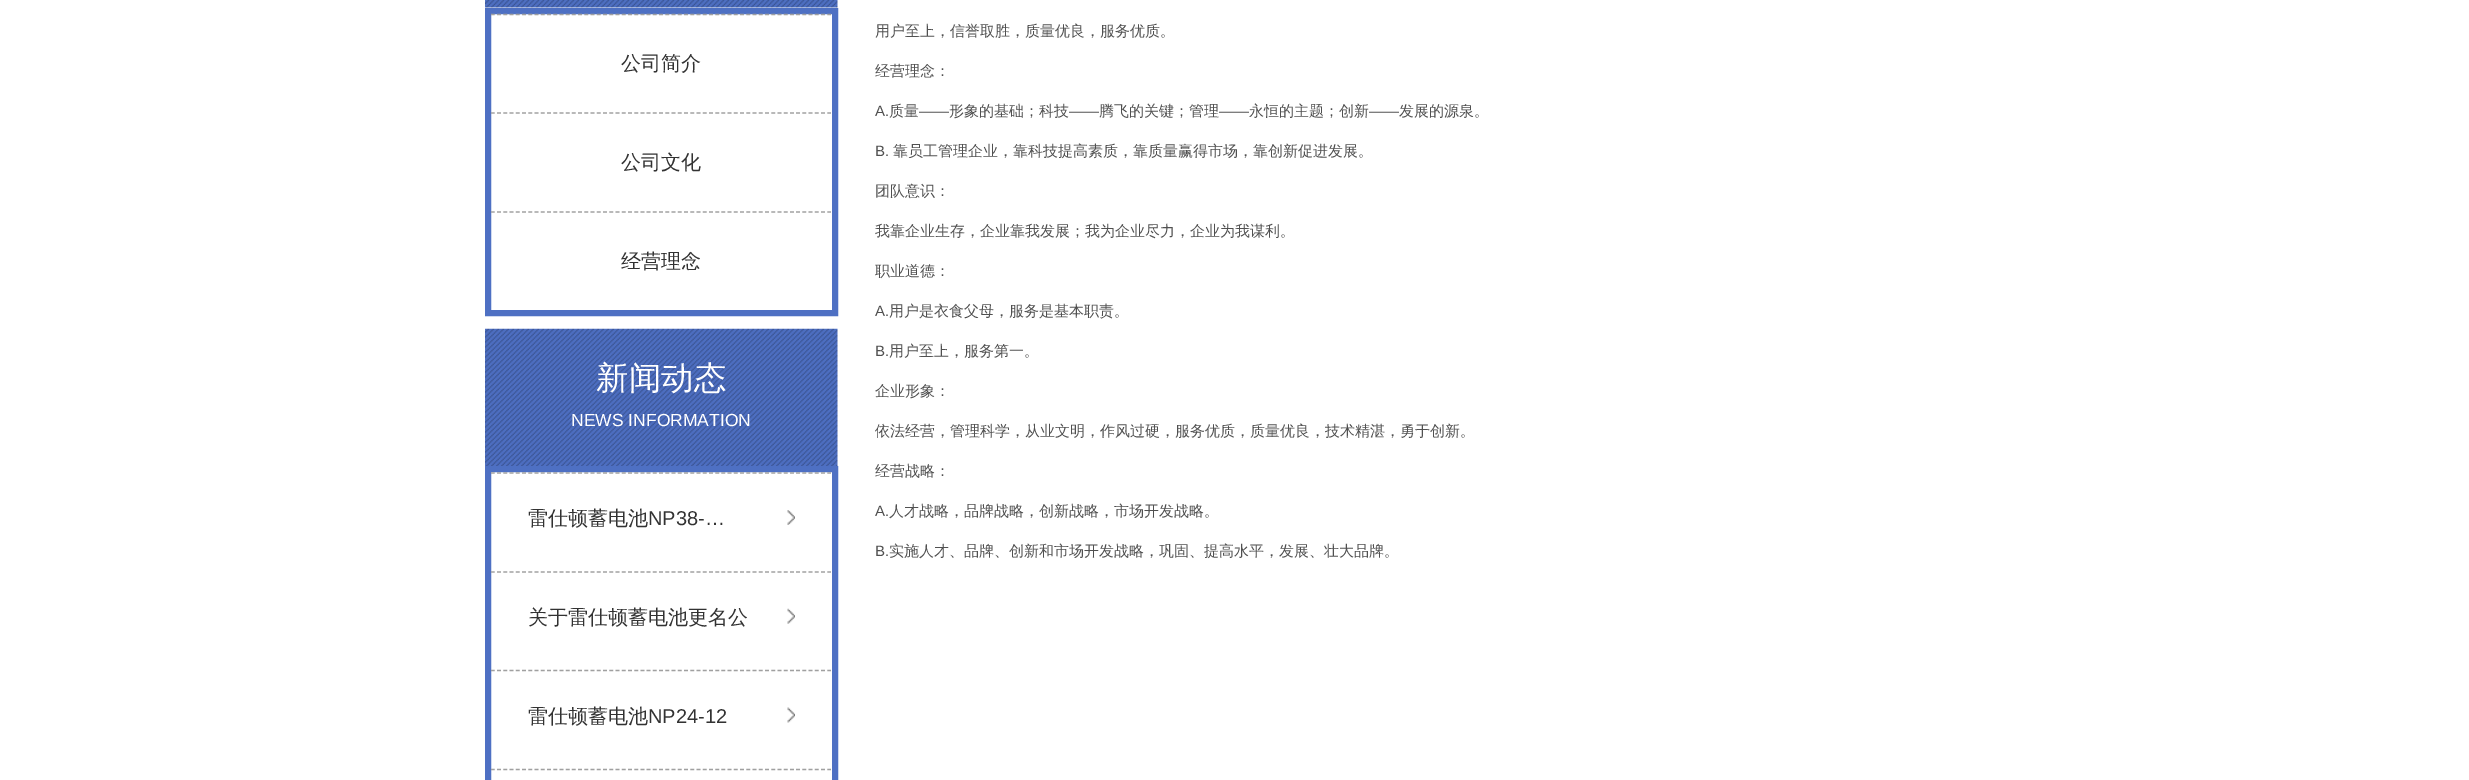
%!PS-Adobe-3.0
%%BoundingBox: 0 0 2469 780
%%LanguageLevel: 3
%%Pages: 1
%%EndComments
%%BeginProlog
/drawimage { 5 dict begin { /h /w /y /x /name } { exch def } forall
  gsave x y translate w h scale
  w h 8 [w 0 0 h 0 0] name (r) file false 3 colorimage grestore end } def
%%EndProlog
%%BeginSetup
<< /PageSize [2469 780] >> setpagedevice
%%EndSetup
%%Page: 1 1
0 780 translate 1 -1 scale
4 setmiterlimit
1 setgray
0 0 2469 780 rectfill
(images/1.raw) 485 0 353 8 drawimage
0.306 0.439 0.765 setrgbcolor
6 setlinewidth
488 11 347 302 rectstroke
0.627 setgray
1.2 setlinewidth
[3.75 2.48] 0 setdash
newpath 491 14.5 moveto 831 14.5 lineto stroke
newpath 491 113 moveto 831 113 lineto stroke
newpath 491 212 moveto 831 212 lineto stroke
(images/2.raw) 485 328 353 138 drawimage
0.306 0.439 0.765 setrgbcolor
6 setlinewidth
[] 0 setdash
488 469 347 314 rectstroke
0.627 setgray
1.2 setlinewidth
[3.75 2.48] 0 setdash
newpath 491 473 moveto 831 473 lineto stroke
(images/3.raw) 787 510 8 15 drawimage
newpath 491 572 moveto 831 572 lineto stroke
(images/4.raw) 787 608 8 16 drawimage
newpath 491 670.5 moveto 831 670.5 lineto stroke
(images/5.raw) 787 707 8 16 drawimage
newpath 491 769.5 moveto 831 769.5 lineto stroke
/WenQuanYiZenHei-Medium [20 0 0 -20 0 0] selectfont
0.196 setgray
621 70 moveto (公司简介) show
621 169 moveto (公司文化) show
621 268 moveto (经营理念) show
/WenQuanYiZenHei-Medium [15 0 0 -15 0 0] selectfont
0.314 setgray
875 36 moveto (用户至上，信誉取胜，质量优良，服务优质。) show
875 76 moveto (经营理念：) show
/LiberationSans-Regular [15 0 0 -15 0 0] selectfont
875 116 moveto (A.) show
/WenQuanYiZenHei-Medium [15 0 0 -15 0 0] selectfont
889 116 moveto (质量) show
/LiberationSans-Regular [15 0 0 -15 0 0] selectfont
919 116 moveto (——) show
/WenQuanYiZenHei-Medium [15 0 0 -15 0 0] selectfont
949 116 moveto (形象的基础；科技) show
/LiberationSans-Regular [15 0 0 -15 0 0] selectfont
1069 116 moveto (——) show
/WenQuanYiZenHei-Medium [15 0 0 -15 0 0] selectfont
1099 116 moveto (腾飞的关键；管理) show
/LiberationSans-Regular [15 0 0 -15 0 0] selectfont
1219 116 moveto (——) show
/WenQuanYiZenHei-Medium [15 0 0 -15 0 0] selectfont
1249 116 moveto (永恒的主题；创新) show
/LiberationSans-Regular [15 0 0 -15 0 0] selectfont
1369 116 moveto (——) show
/WenQuanYiZenHei-Medium [15 0 0 -15 0 0] selectfont
1399 116 moveto (发展的源泉。) show
/LiberationSans-Regular [15 0 0 -15 0 0] selectfont
875 156 moveto (B.) show
/WenQuanYiZenHei-Medium [15 0 0 -15 0 0] selectfont
893 156 moveto (靠员工管理企业，靠科技提高素质，靠质量赢得市场，靠创新促进发展。) show
875 196 moveto (团队意识：) show
875 236 moveto (我靠企业生存，企业靠我发展；我为企业尽力，企业为我谋利。) show
875 276 moveto (职业道德：) show
/LiberationSans-Regular [15 0 0 -15 0 0] selectfont
875 316 moveto (A.) show
/WenQuanYiZenHei-Medium [15 0 0 -15 0 0] selectfont
889 316 moveto (用户是衣食父母，服务是基本职责。) show
/LiberationSans-Regular [15 0 0 -15 0 0] selectfont
875 356 moveto (B.) show
/WenQuanYiZenHei-Medium [15 0 0 -15 0 0] selectfont
889 356 moveto (用户至上，服务第一。) show
875 396 moveto (企业形象：) show
875 436 moveto (依法经营，管理科学，从业文明，作风过硬，服务优质，质量优良，技术精湛，勇于创新。) show
875 476 moveto (经营战略：) show
/LiberationSans-Regular [15 0 0 -15 0 0] selectfont
875 516 moveto (A.) show
/WenQuanYiZenHei-Medium [15 0 0 -15 0 0] selectfont
889 516 moveto (人才战略，品牌战略，创新战略，市场开发战略。) show
/LiberationSans-Regular [15 0 0 -15 0 0] selectfont
875 556 moveto (B.) show
/WenQuanYiZenHei-Medium [15 0 0 -15 0 0] selectfont
889 556 moveto (实施人才、品牌、创新和市场开发战略，巩固、提高水平，发展、壮大品牌。) show
/WenQuanYiZenHei-Medium [32.5 0 0 -32.5 0 0] selectfont
1 setgray
596 389 moveto (新闻动态) show
/LiberationSans-Regular [17.5 0 0 -17.5 0 0] selectfont
571 426 moveto (NEWS INFORMATION) show
/WenQuanYiZenHei-Medium [20 0 0 -20 0 0] selectfont
0.196 setgray
528 525 moveto (雷仕顿蓄电池) show
/LiberationSans-Regular [20 0 0 -20 0 0] selectfont
648 525 moveto (NP38-…) show
/WenQuanYiZenHei-Medium [20 0 0 -20 0 0] selectfont
528 624 moveto (关于雷仕顿蓄电池更名公) show
528 723 moveto (雷仕顿蓄电池) show
/LiberationSans-Regular [20 0 0 -20 0 0] selectfont
648 723 moveto (NP24-12) show
showpage
%%EOF
